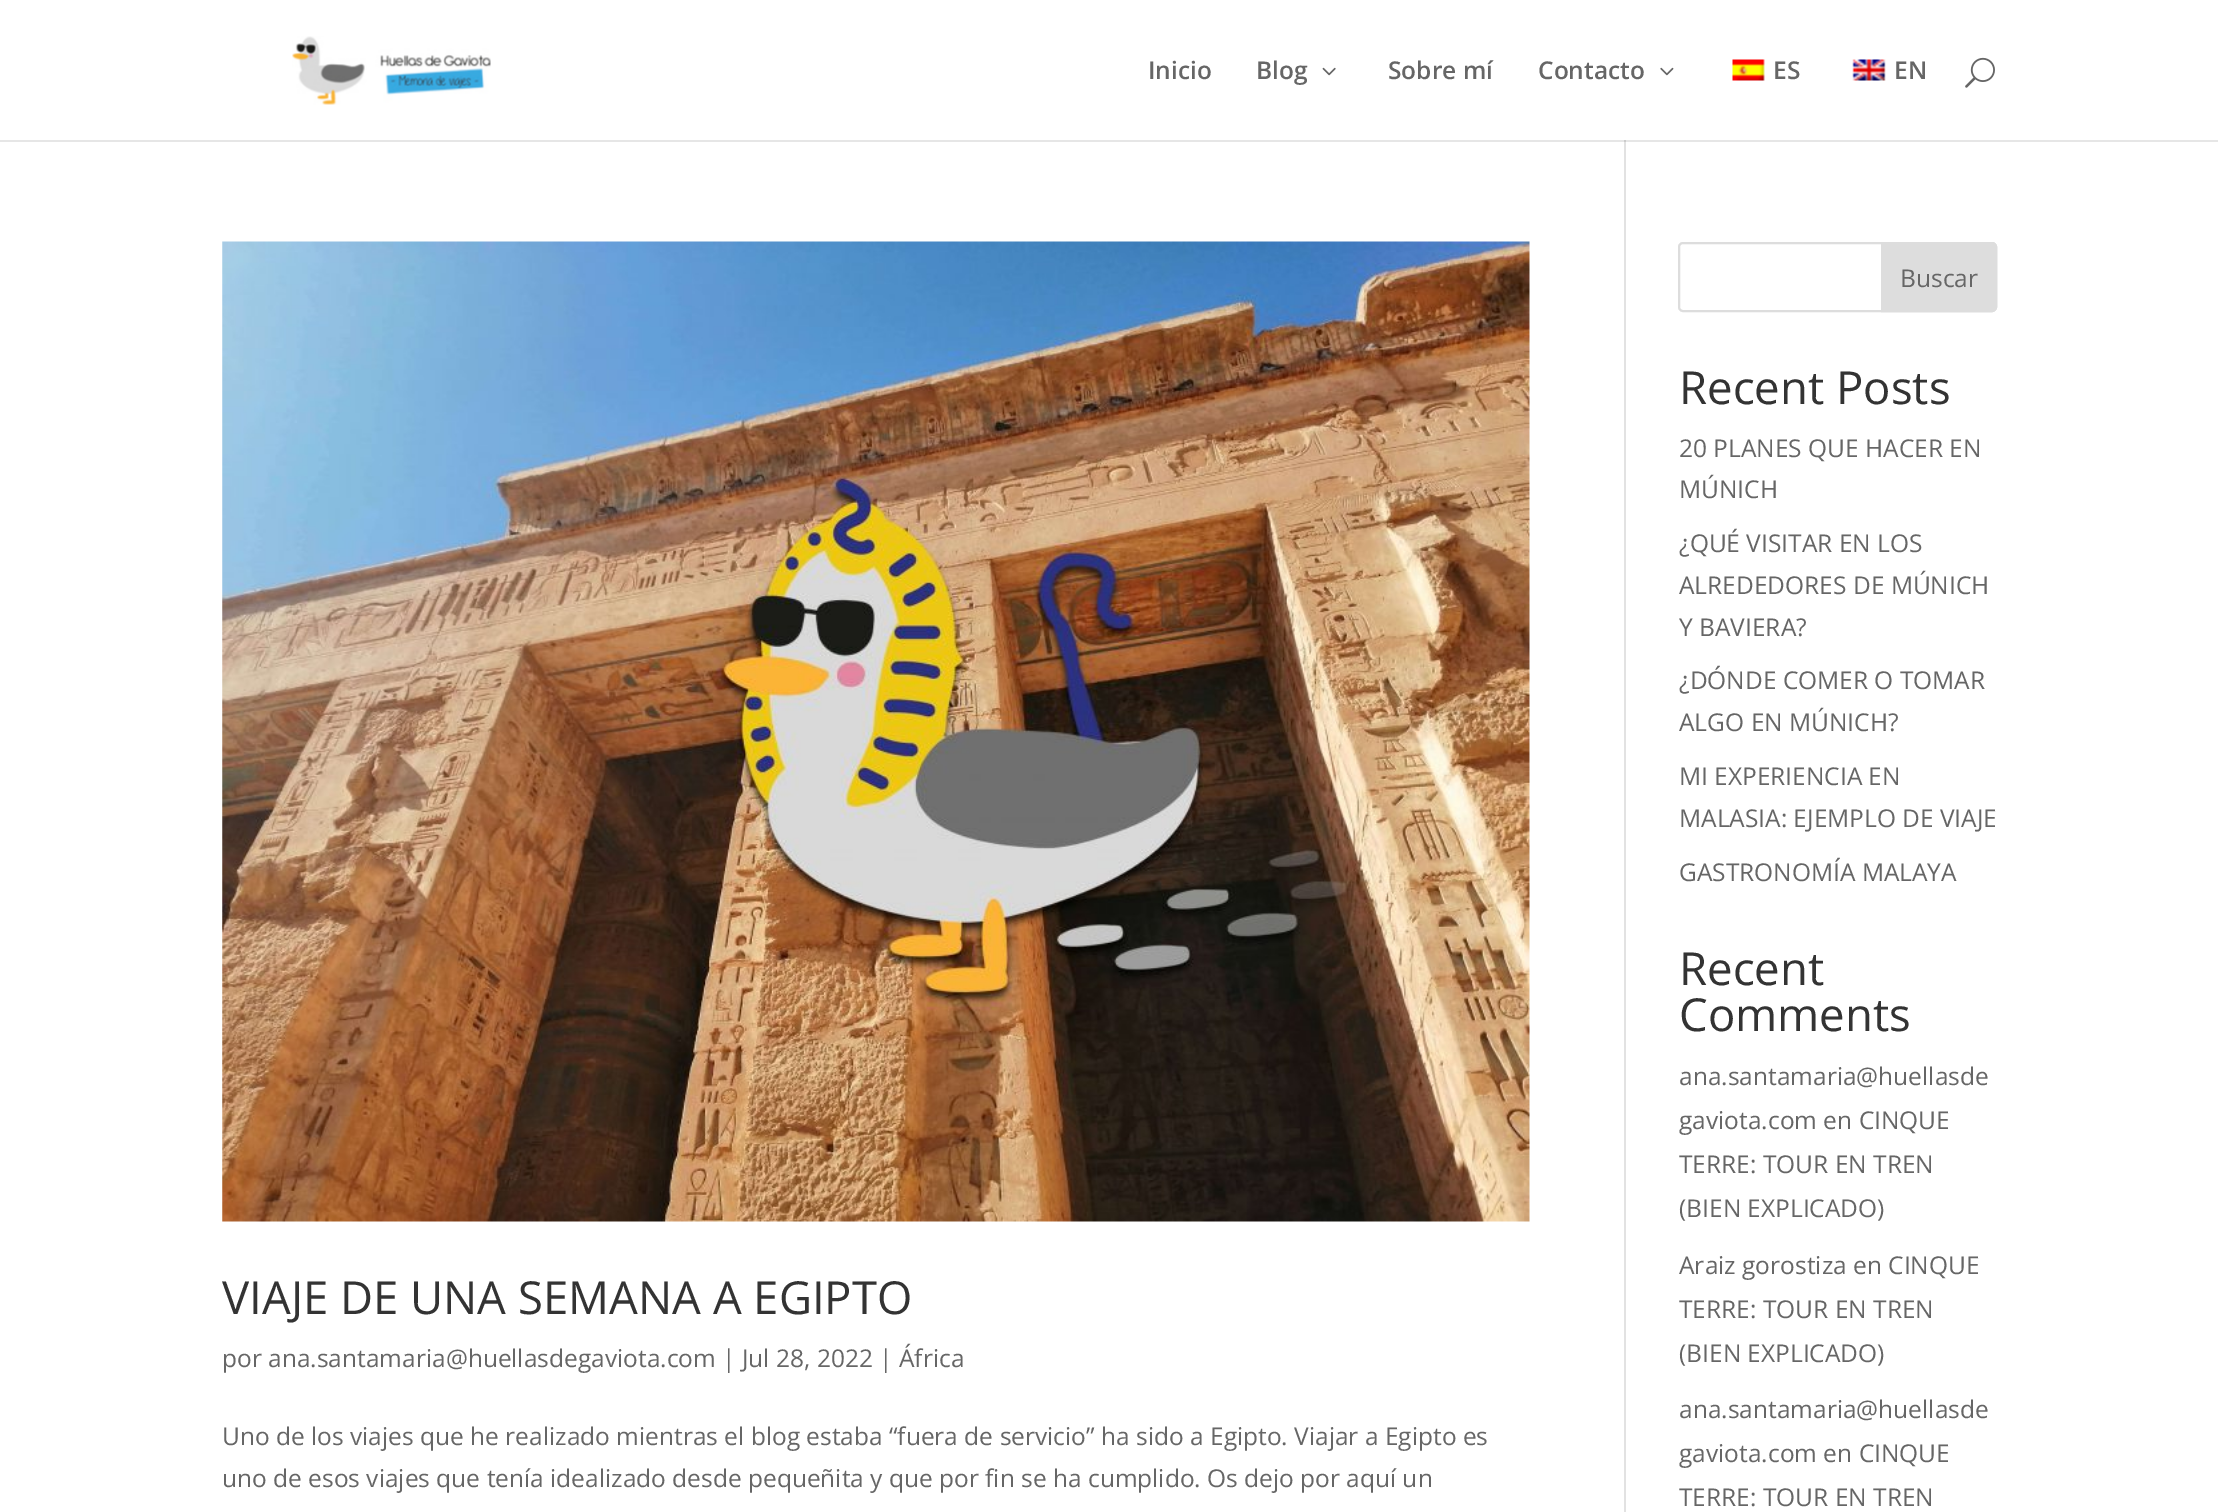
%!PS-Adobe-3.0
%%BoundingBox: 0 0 2218 1512
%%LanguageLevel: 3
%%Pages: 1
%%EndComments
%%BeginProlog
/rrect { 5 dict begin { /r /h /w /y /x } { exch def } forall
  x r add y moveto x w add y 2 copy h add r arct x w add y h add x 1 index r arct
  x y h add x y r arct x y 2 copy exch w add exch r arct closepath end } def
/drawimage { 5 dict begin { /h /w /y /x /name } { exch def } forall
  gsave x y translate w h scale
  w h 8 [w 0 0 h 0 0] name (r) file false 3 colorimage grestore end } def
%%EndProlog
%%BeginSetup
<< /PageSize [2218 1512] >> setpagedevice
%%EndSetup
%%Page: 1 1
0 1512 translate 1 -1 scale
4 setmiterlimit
1 setgray
0 0 2218 1512 rectfill
0.902 setgray
0 140 2218 2 rectfill
(images/1.raw) 292 36 199 69 drawimage
(images/2.raw) 1322 67 14 9 drawimage
(images/3.raw) 1660 67 14 9 drawimage
(images/4.raw) 1732 59 33 22 drawimage
(images/5.raw) 1852 59 34 22 drawimage
(images/6.raw) 1965 57 30 31 drawimage
0.886 setgray
1624 140 2 1372 rectfill
0.796 setgray
1624 140 2 2 rectfill
(images/7.raw) 222 241 1308 981 drawimage
0.867 setgray
2 setlinewidth
1679 243 317 68 4 rrect stroke
newpath 1882 243 moveto 1992 243 lineto 1994 243 1996 245 1996 247 curveto 1996 307 lineto 1996 309 1994 311 1992 311 curveto 1882 311 lineto closepath gsave fill grestore
stroke
/OpenSans-SemiBold [24.5 0 0 -24.5 0 0] selectfont
0.4 setgray
1148 79 moveto (Inicio) show
1256 79 moveto (Blog) show
1388 79 moveto (Sobre mí) show
1538 79 moveto (Contacto) show
1773 79 moveto (ES) show
1894 79 moveto (EN) show
/OpenSans-Regular [45.5 0 0 -45.5 0 0] selectfont
0.2 setgray
222 1314 moveto (VIAJE DE UNA SEMANA A EGIPTO) show
/OpenSans-Regular [24.5 0 0 -24.5 0 0] selectfont
0.4 setgray
222 1367 moveto (por ana.santamaria@huellasdegaviota.com | Jul 28, 2022 | África) show
222 1445 moveto (Uno de los viajes que he realizado mientras el blog estaba “fuera de servicio” ha sido a Egipto. Viajar a Egipto es) show
222 1487 moveto (uno de esos viajes que tenía idealizado desde pequeñita y que por fin se ha cumplido. Os dejo por aquí un) show
1900 287 moveto (Buscar) show
/OpenSans-Regular [45.5 0 0 -45.5 0 0] selectfont
0.2 setgray
1679 404 moveto (Recent Posts) show
/OpenSans-Regular [24.5 0 0 -24.5 0 0] selectfont
0.4 setgray
1679 457 moveto (20 PLANES QUE HACER EN) show
1679 498 moveto (MÚNICH) show
1679 552 moveto (¿QUÉ VISITAR EN LOS) show
1679 594 moveto (ALREDEDORES DE MÚNICH) show
1679 636 moveto (Y BAVIERA?) show
1679 689 moveto (¿DÓNDE COMER O TOMAR) show
1679 731 moveto (ALGO EN MÚNICH?) show
1679 785 moveto (MI EXPERIENCIA EN) show
1679 827 moveto (MALASIA: EJEMPLO DE VIAJE) show
1679 881 moveto (GASTRONOMÍA MALAYA) show
/OpenSans-Regular [45.5 0 0 -45.5 0 0] selectfont
0.2 setgray
1679 985 moveto (Recent) show
1679 1031 moveto (Comments) show
/OpenSans-Regular [24.5 0 0 -24.5 0 0] selectfont
0.4 setgray
1679 1085 moveto (ana.santamaria@huellasde) show
1679 1129 moveto (gaviota.com en CINQUE) show
1679 1173 moveto (TERRE: TOUR EN TREN) show
1679 1217 moveto (\(BIEN EXPLICADO\)) show
1679 1274 moveto (Araiz gorostiza en CINQUE) show
1679 1318 moveto (TERRE: TOUR EN TREN) show
1679 1362 moveto (\(BIEN EXPLICADO\)) show
1679 1418 moveto (ana.santamaria@huellasde) show
1679 1462 moveto (gaviota.com en CINQUE) show
1679 1506 moveto (TERRE: TOUR EN TREN) show
showpage
%%EOF
